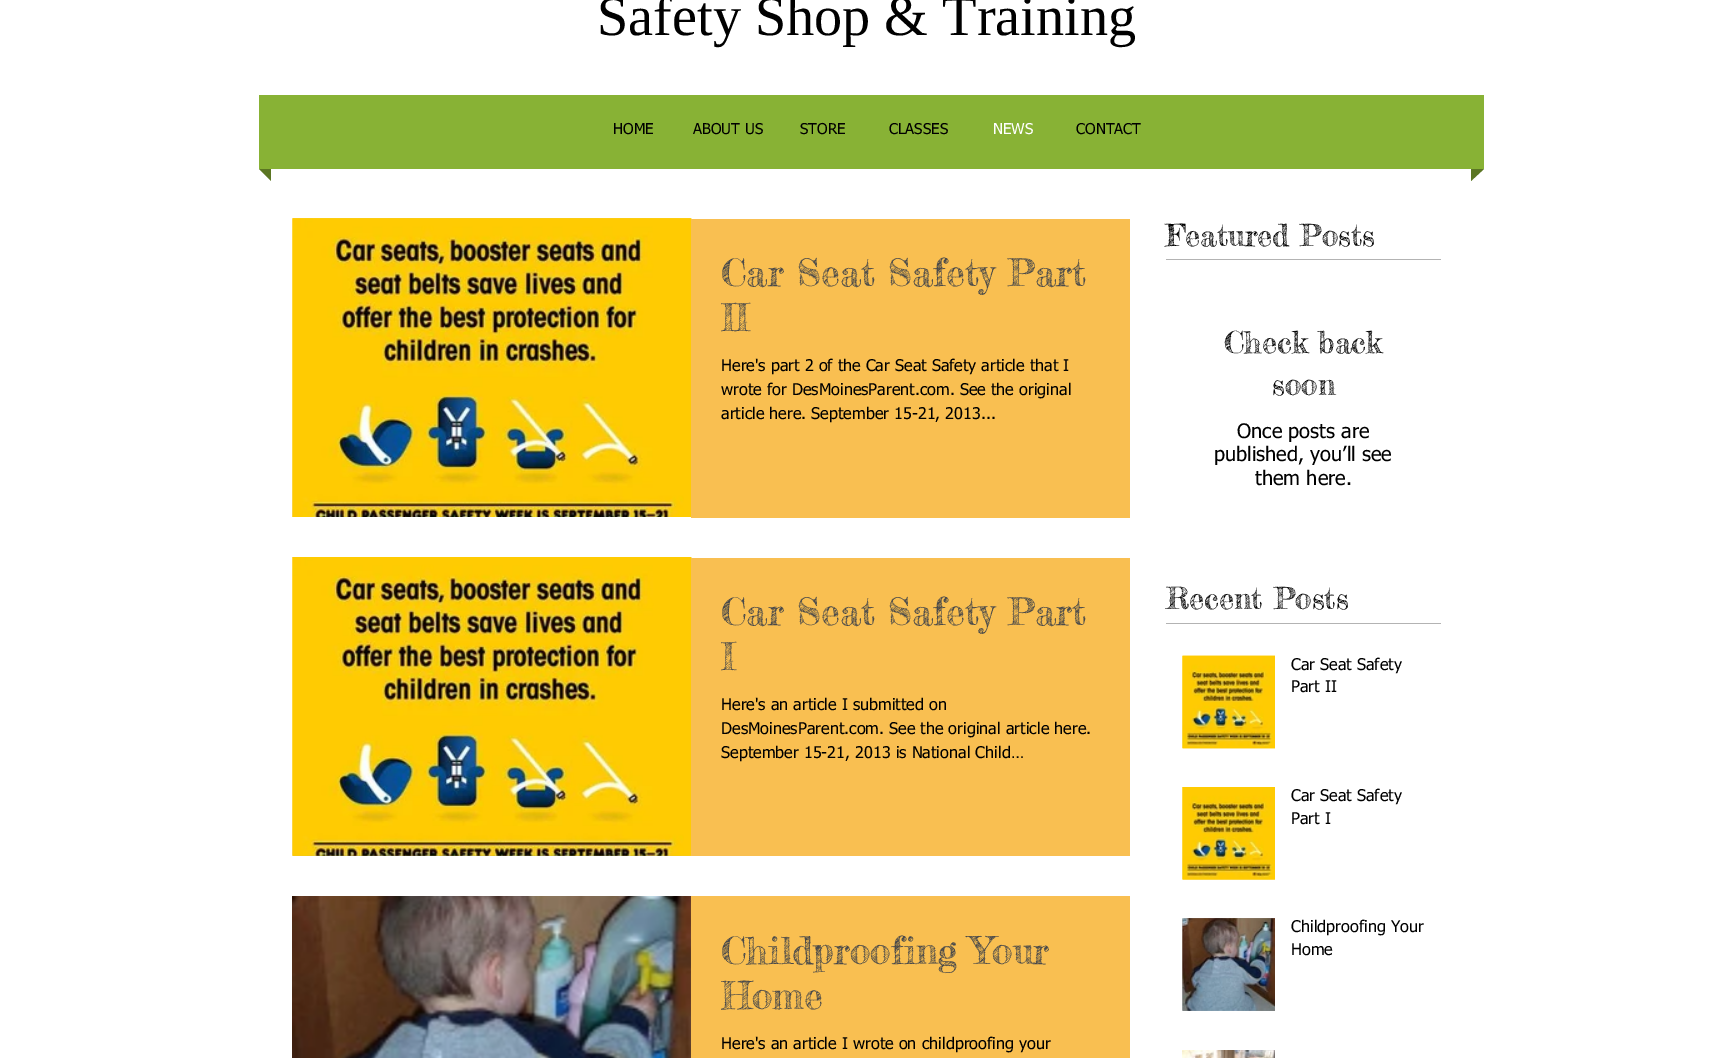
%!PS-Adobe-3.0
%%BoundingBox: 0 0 1733 1058
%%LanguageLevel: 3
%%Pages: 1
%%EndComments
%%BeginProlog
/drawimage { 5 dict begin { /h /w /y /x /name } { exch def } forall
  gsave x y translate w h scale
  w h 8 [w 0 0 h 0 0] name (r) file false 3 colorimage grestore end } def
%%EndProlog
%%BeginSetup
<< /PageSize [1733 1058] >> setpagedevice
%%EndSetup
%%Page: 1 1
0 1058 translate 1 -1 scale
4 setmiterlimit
1 setgray
0 0 1733 1058 rectfill
0.533 0.698 0.208 setrgbcolor
259 95 1225 74 rectfill
0.357 0.463 0.137 setrgbcolor
newpath 259 169 moveto 271 169 lineto 271 181 lineto closepath fill
newpath 1471 169 moveto 1484 169 lineto 1471 181 lineto closepath fill
(images/1.raw) 292 218 400 299 drawimage
(images/2.raw) 292 218 400 299 drawimage
0.976 0.749 0.318 setrgbcolor
691 219 439 299 rectfill
(images/3.raw) 292 557 400 299 drawimage
(images/4.raw) 292 557 400 299 drawimage
691 558 439 298 rectfill
(images/6.raw) 690 896 1 162 drawimage
(images/5.raw) 292 896 399 162 drawimage
691 896 439 162 rectfill
0.702 setgray
1166 259 275 1 rectfill
1166 623 275 1 rectfill
(images/7.raw) 1182 655 93 94 drawimage
(images/8.raw) 1182 655 93 94 drawimage
(images/9.raw) 1182 787 93 93 drawimage
(images/10.raw) 1182 787 93 93 drawimage
(images/11.raw) 1182 918 93 93 drawimage
(images/12.raw) 1182 918 93 93 drawimage
(images/13.raw) 1182 1050 93 8 drawimage
/LiberationSerif-Regular [56.25 0 0 -56.25 0 0] selectfont
0 setgray
597 35 moveto (Safety Shop & Training) show
/tahoma-Regular [15 0 0 -15 0 0] selectfont
613 134 moveto (HOME) show
693 134 moveto (ABOUT US) show
800 134 moveto (STORE) show
889 134 moveto (CLASSES) show
1 setgray
993 134 moveto (NEWS) show
0 setgray
1076 134 moveto (CONTACT) show
/FrederickatheGreat-Regular [30 0 0 -30 0 0] selectfont
1166 246 moveto (Featured Posts) show
/FrederickatheGreat-Regular [37.5 0 0 -37.5 0 0] selectfont
0.29 setgray
721 286 moveto (Car Seat Safety Part) show
gsave
721 250 379 90 rectclip
721 331 moveto (II) show
grestore
/tahoma-Regular [16.25 0 0 -16.25 0 0] selectfont
0 setgray
721 371 moveto (Here's part 2 of the Car Seat Safety article that I) show
721 395 moveto (wrote for DesMoinesParent.com. See the original) show
721 419 moveto (article here. September 15-21, 2013...) show
/FrederickatheGreat-Regular [37.5 0 0 -37.5 0 0] selectfont
0.29 setgray
721 625 moveto (Car Seat Safety Part) show
gsave
721 589 379 90 rectclip
721 670 moveto (I) show
grestore
/tahoma-Regular [16.25 0 0 -16.25 0 0] selectfont
0 setgray
721 710 moveto (Here's an article I submitted on) show
721 734 moveto (DesMoinesParent.com. See the original article here.) show
721 758 moveto (September 15-21, 2013 is National Child…) show
/FrederickatheGreat-Regular [37.5 0 0 -37.5 0 0] selectfont
0.29 setgray
721 964 moveto (Childproofing Your) show
gsave
721 928 379 90 rectclip
721 1009 moveto (Home) show
grestore
/tahoma-Regular [16.25 0 0 -16.25 0 0] selectfont
0 setgray
721 1049 moveto (Here's an article I wrote on childproofing your) show
/FrederickatheGreat-Regular [30 0 0 -30 0 0] selectfont
1224 353 moveto (Check back) show
1272 395 moveto (soon) show
/tahoma-Regular [20 0 0 -20 0 0] selectfont
1237 438 moveto (Once posts are) show
1214 461 moveto (published, you’ll see) show
1255 485 moveto (them here.) show
/FrederickatheGreat-Regular [30 0 0 -30 0 0] selectfont
1166 609 moveto (Recent Posts) show
/tahoma-Regular [16.25 0 0 -16.25 0 0] selectfont
1291 670 moveto (Car Seat Safety) show
1291 692 moveto (Part II) show
1291 801 moveto (Car Seat Safety) show
1291 824 moveto (Part I) show
1291 932 moveto (Childproofing Your) show
1291 955 moveto (Home) show
showpage
%%EOF
